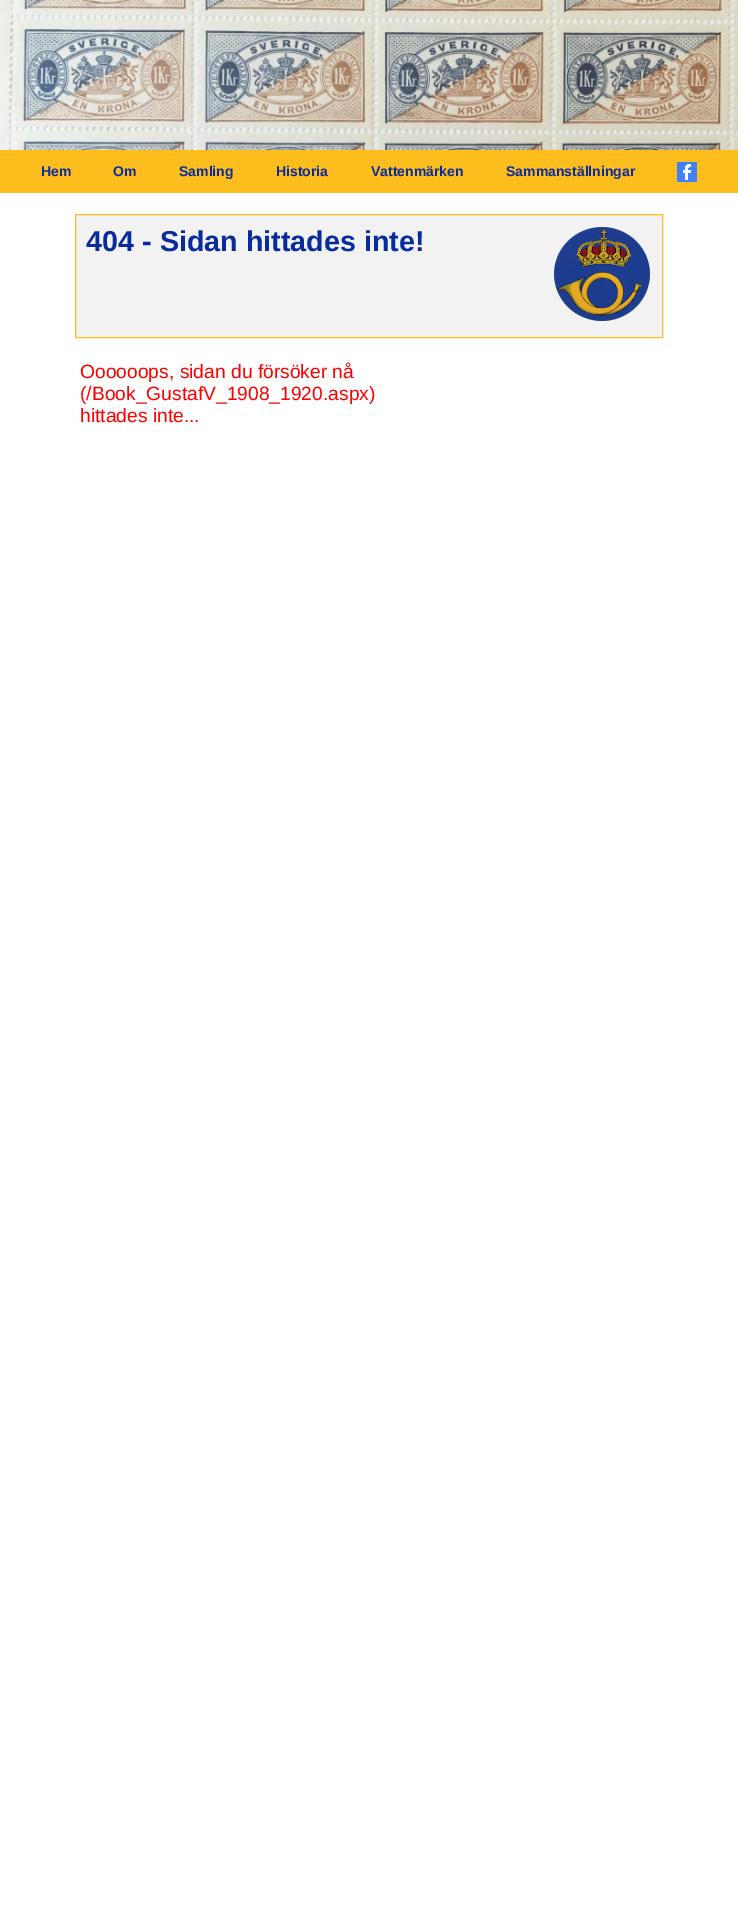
%!PS-Adobe-3.0
%%BoundingBox: 0 0 738 1929
%%LanguageLevel: 3
%%Pages: 1
%%EndComments
%%BeginProlog
/drawimage { 5 dict begin { /h /w /y /x /name } { exch def } forall
  gsave x y translate w h scale
  w h 8 [w 0 0 h 0 0] name (r) file false 3 colorimage grestore end } def
%%EndProlog
%%BeginSetup
<< /PageSize [738 1929] >> setpagedevice
%%EndSetup
%%Page: 1 1
0 1929 translate 1 -1 scale
4 setmiterlimit
1 setgray
0 0 738 1929 rectfill
(images/1.raw) 0 0 738 150 drawimage
0.992 0.741 0.114 setrgbcolor
0 150 738 43 rectfill
(images/2.raw) 677 162 20 20 drawimage
0.949 setgray
newpath 75.5 214.5 moveto 662.5 214.5 lineto 662.5 337.5 lineto 75.5 337.5 lineto closepath gsave fill grestore
0.992 0.741 0.114 setrgbcolor
stroke
(images/3.raw) 554 227 96 94 drawimage
/LiberationSans-Bold [14 0 0 -14 0 0] selectfont
0.031 0.173 0.62 setrgbcolor
41 176 moveto (Hem) show
113 176 moveto (Om) show
179 176 moveto (Samling) show
276 176 moveto (Historia) show
371 176 moveto (Vattenmärken) show
506 176 moveto (Sammanställningar) show
/LiberationSans-Bold [28.75 0 0 -28.75 0 0] selectfont
86 251 moveto (404 - Sidan hittades inte!) show
/LiberationSans-Regular [19.25 0 0 -19.25 0 0] selectfont
1 0 0 setrgbcolor
80 378 moveto (Oooooops, sidan du försöker nå) show
80 400 moveto (\(/Book_GustafV_1908_1920.aspx\)) show
80 422 moveto (hittades inte...) show
showpage
%%EOF
